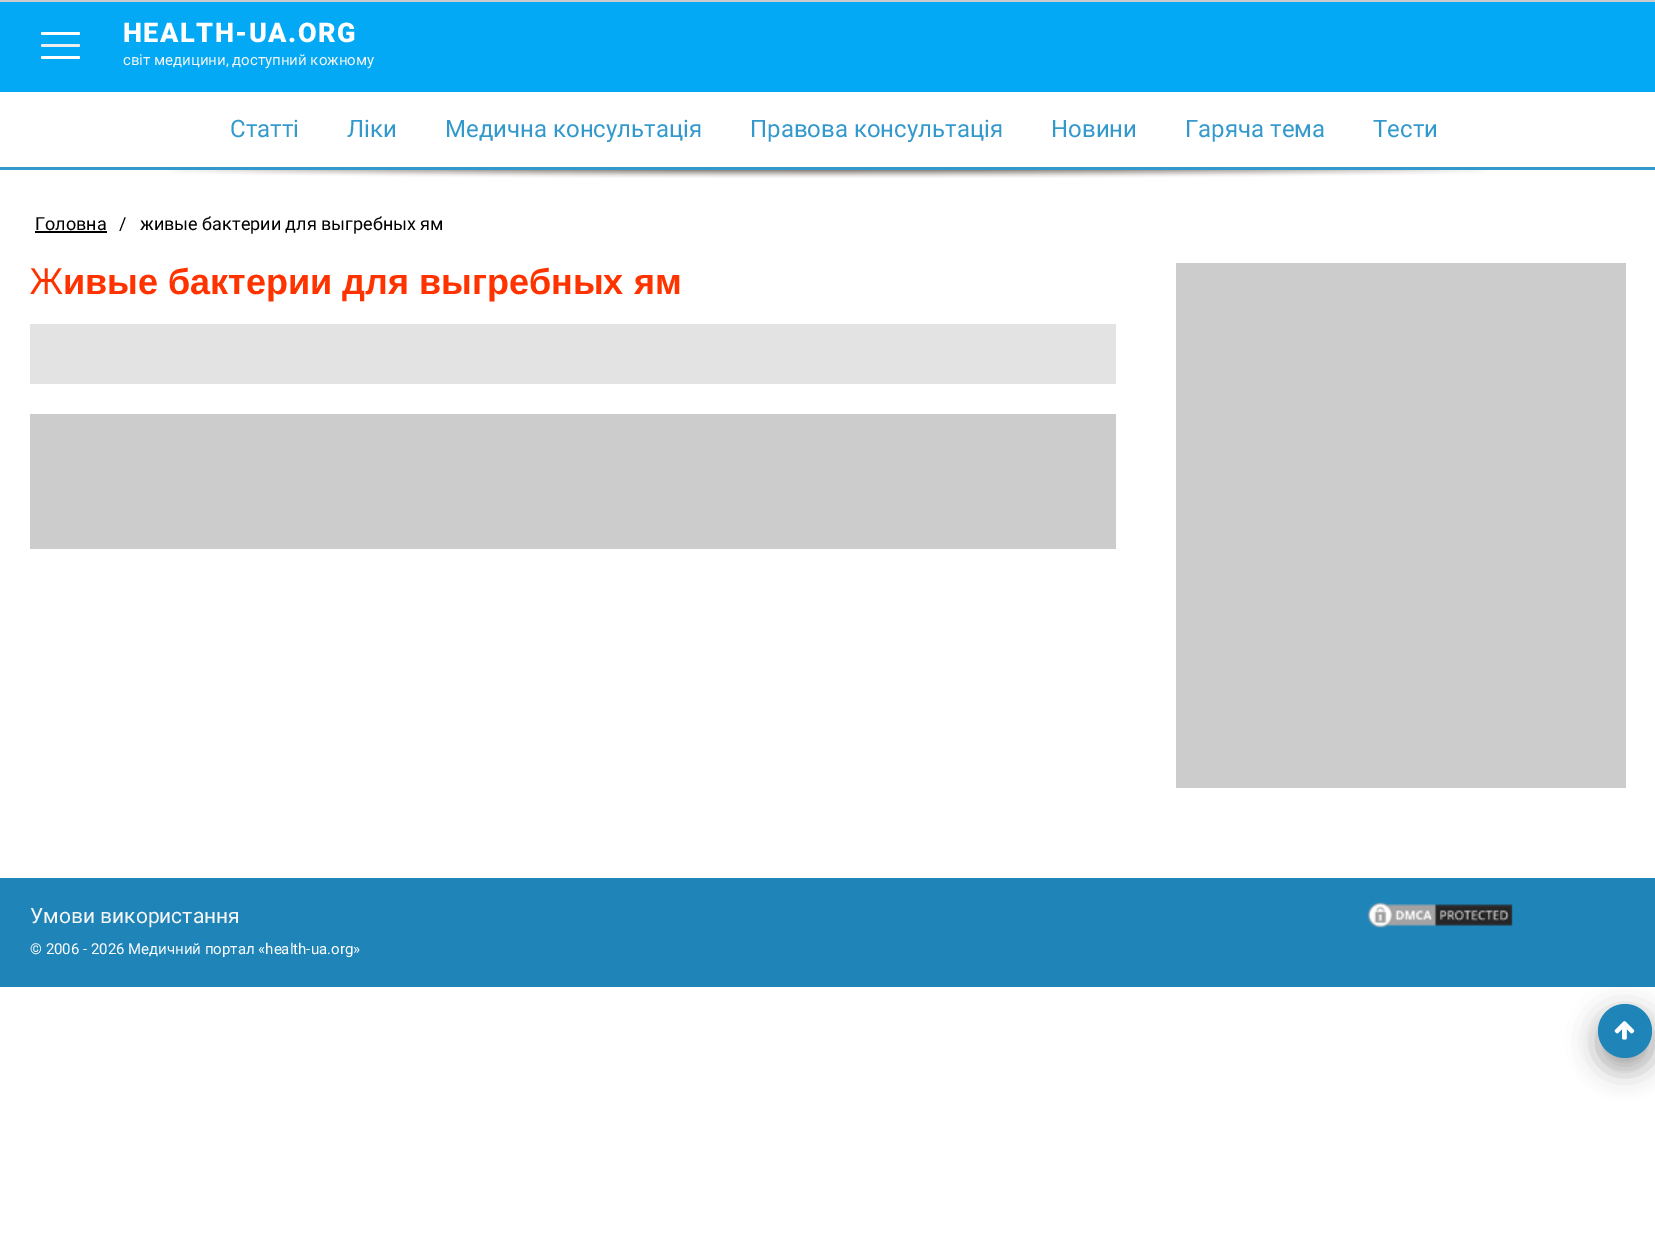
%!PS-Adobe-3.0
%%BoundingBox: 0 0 1655 1256
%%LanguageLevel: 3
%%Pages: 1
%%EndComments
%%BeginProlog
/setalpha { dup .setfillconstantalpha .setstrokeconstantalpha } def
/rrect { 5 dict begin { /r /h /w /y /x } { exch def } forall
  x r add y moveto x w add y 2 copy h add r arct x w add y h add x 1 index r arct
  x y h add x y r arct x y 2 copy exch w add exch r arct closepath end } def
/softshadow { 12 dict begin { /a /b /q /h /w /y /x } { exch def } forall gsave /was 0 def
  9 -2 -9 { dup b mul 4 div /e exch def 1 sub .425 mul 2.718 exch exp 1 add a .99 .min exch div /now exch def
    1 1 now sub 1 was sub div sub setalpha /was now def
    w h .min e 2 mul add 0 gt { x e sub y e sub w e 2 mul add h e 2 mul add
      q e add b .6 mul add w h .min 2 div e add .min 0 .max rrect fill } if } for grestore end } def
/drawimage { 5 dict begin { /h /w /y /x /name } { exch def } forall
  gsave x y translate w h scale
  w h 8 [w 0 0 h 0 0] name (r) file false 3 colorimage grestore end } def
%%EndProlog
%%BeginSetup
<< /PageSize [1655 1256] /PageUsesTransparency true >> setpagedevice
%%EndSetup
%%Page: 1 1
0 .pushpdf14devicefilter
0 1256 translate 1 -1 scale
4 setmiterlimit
1 setgray
0 0 1655 1256 rectfill
0.8 setgray
0 0 1655 2 rectfill
0.012 0.663 0.961 setrgbcolor
0 2 1655 90 rectfill
0.929 setgray
41 44 39 3 1.5 rrect fill
1 setgray
41 32 39 3 1.5 rrect fill
41 56 39 3 1.5 rrect fill
(images/1.raw) 169 170 1318 8 drawimage
0.2 0.6 0.8 setrgbcolor
0 167 1655 3 rectfill
0 setgray
35 231 72 2 rectfill
0.89 setgray
30 324 1086 60 rectfill
0.8 setgray
30 414 1086 135 rectfill
1176 263 450 525 rectfill
0.122 0.522 0.722 setrgbcolor
0 878 1655 109 rectfill
(images/2.raw) 1367 902 146 26 drawimage
0 setgray
1598 1013 54 54 27 15 0.19 softshadow
1598 1016 54 54 27 12 0.2 softshadow
0.122 0.522 0.722 setrgbcolor
newpath 1625 1031 27 0 360 arc closepath fill
(images/3.raw) 1614 1021 21 19 drawimage
/Roboto-Black [27 0 0 -27 0 0] selectfont
1 setgray
123 42 moveto 1.5 0 (HEALTH-UA.ORG) ashow
/Roboto-Regular [15 0 0 -15 0 0] selectfont
0.961 setgray
123 65 moveto (світ медицини, доступний кожному) show
/Roboto-Regular [24 0 0 -24 0 0] selectfont
0.2 0.6 0.8 setrgbcolor
230 137 moveto (Статті) show
347 137 moveto (Ліки) show
445 137 moveto (Медична консультація) show
750 137 moveto (Правова консультація) show
1051 137 moveto (Новини) show
1185 137 moveto (Гаряча тема) show
1373 137 moveto (Тести) show
/Roboto-Regular [18 0 0 -18 0 0] selectfont
0 setgray
35 230 moveto (Головна) show
119 230 moveto (/) show
140 230 moveto (живые бактерии для выгребных ям) show
/NotoSans-Regular [36 0 0 -36 0 0] selectfont
1 0.2 0 setrgbcolor
30 294 moveto (Ж) show
/LiberationSans-Bold [36 0 0 -36 0 0] selectfont
63 294 moveto (ивые бактерии для выгребных ям) show
/Roboto-Regular [21 0 0 -21 0 0] selectfont
0.961 setgray
30 923 moveto (Умови використання) show
/Roboto-Regular [15 0 0 -15 0 0] selectfont
1 setgray
30 954 moveto (© 2006 - 2026 Медичний портал «health-ua.org») show
.poppdf14devicefilter showpage
%%EOF
